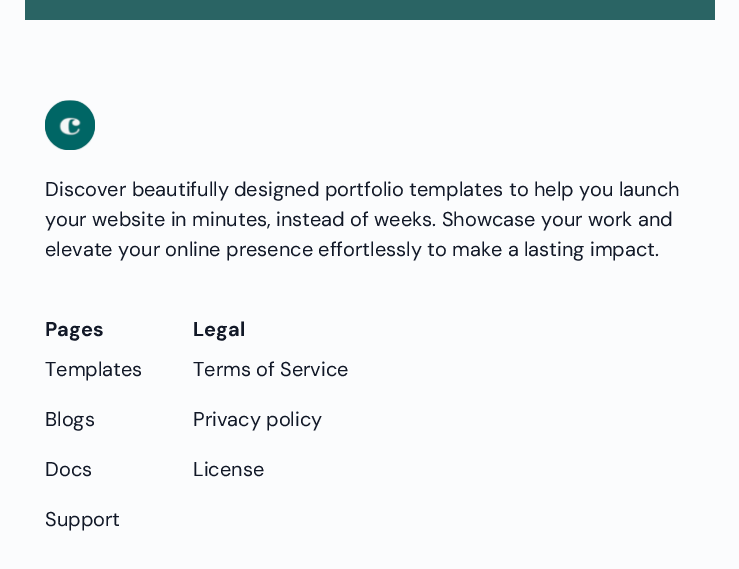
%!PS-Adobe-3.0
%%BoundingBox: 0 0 739 569
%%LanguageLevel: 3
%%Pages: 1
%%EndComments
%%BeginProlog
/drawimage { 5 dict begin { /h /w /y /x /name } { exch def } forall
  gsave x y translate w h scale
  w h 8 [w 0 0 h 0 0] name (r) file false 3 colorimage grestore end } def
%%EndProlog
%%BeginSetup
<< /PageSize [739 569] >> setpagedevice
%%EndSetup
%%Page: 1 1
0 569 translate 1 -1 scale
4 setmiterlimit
0.984 0.988 0.992 setrgbcolor
0 0 739 569 rectfill
0.165 0.392 0.392 setrgbcolor
25 0 690 20 rectfill
(images/1.raw) 45 100 50 50 drawimage
/DMSans-Regular [20 0 0 -20 0 0] selectfont
0.067 0.094 0.153 setrgbcolor
45 196 moveto (Discover beautifully designed portfolio templates to help you launch) show
45 226 moveto (your website in minutes, instead of weeks. Showcase your work and) show
45 256 moveto (elevate your online presence effortlessly to make a lasting impact.) show
/DMSans-Bold [20 0 0 -20 0 0] selectfont
45 336 moveto (Pages) show
/DMSans-Regular [20 0 0 -20 0 0] selectfont
45 376 moveto (Templates) show
45 426 moveto (Blogs) show
45 476 moveto (Docs) show
45 526 moveto (Support) show
/DMSans-Bold [20 0 0 -20 0 0] selectfont
193 336 moveto (Legal) show
/DMSans-Regular [20 0 0 -20 0 0] selectfont
193 376 moveto (Terms of Service) show
193 426 moveto (Privacy policy) show
193 476 moveto (License) show
showpage
%%EOF
